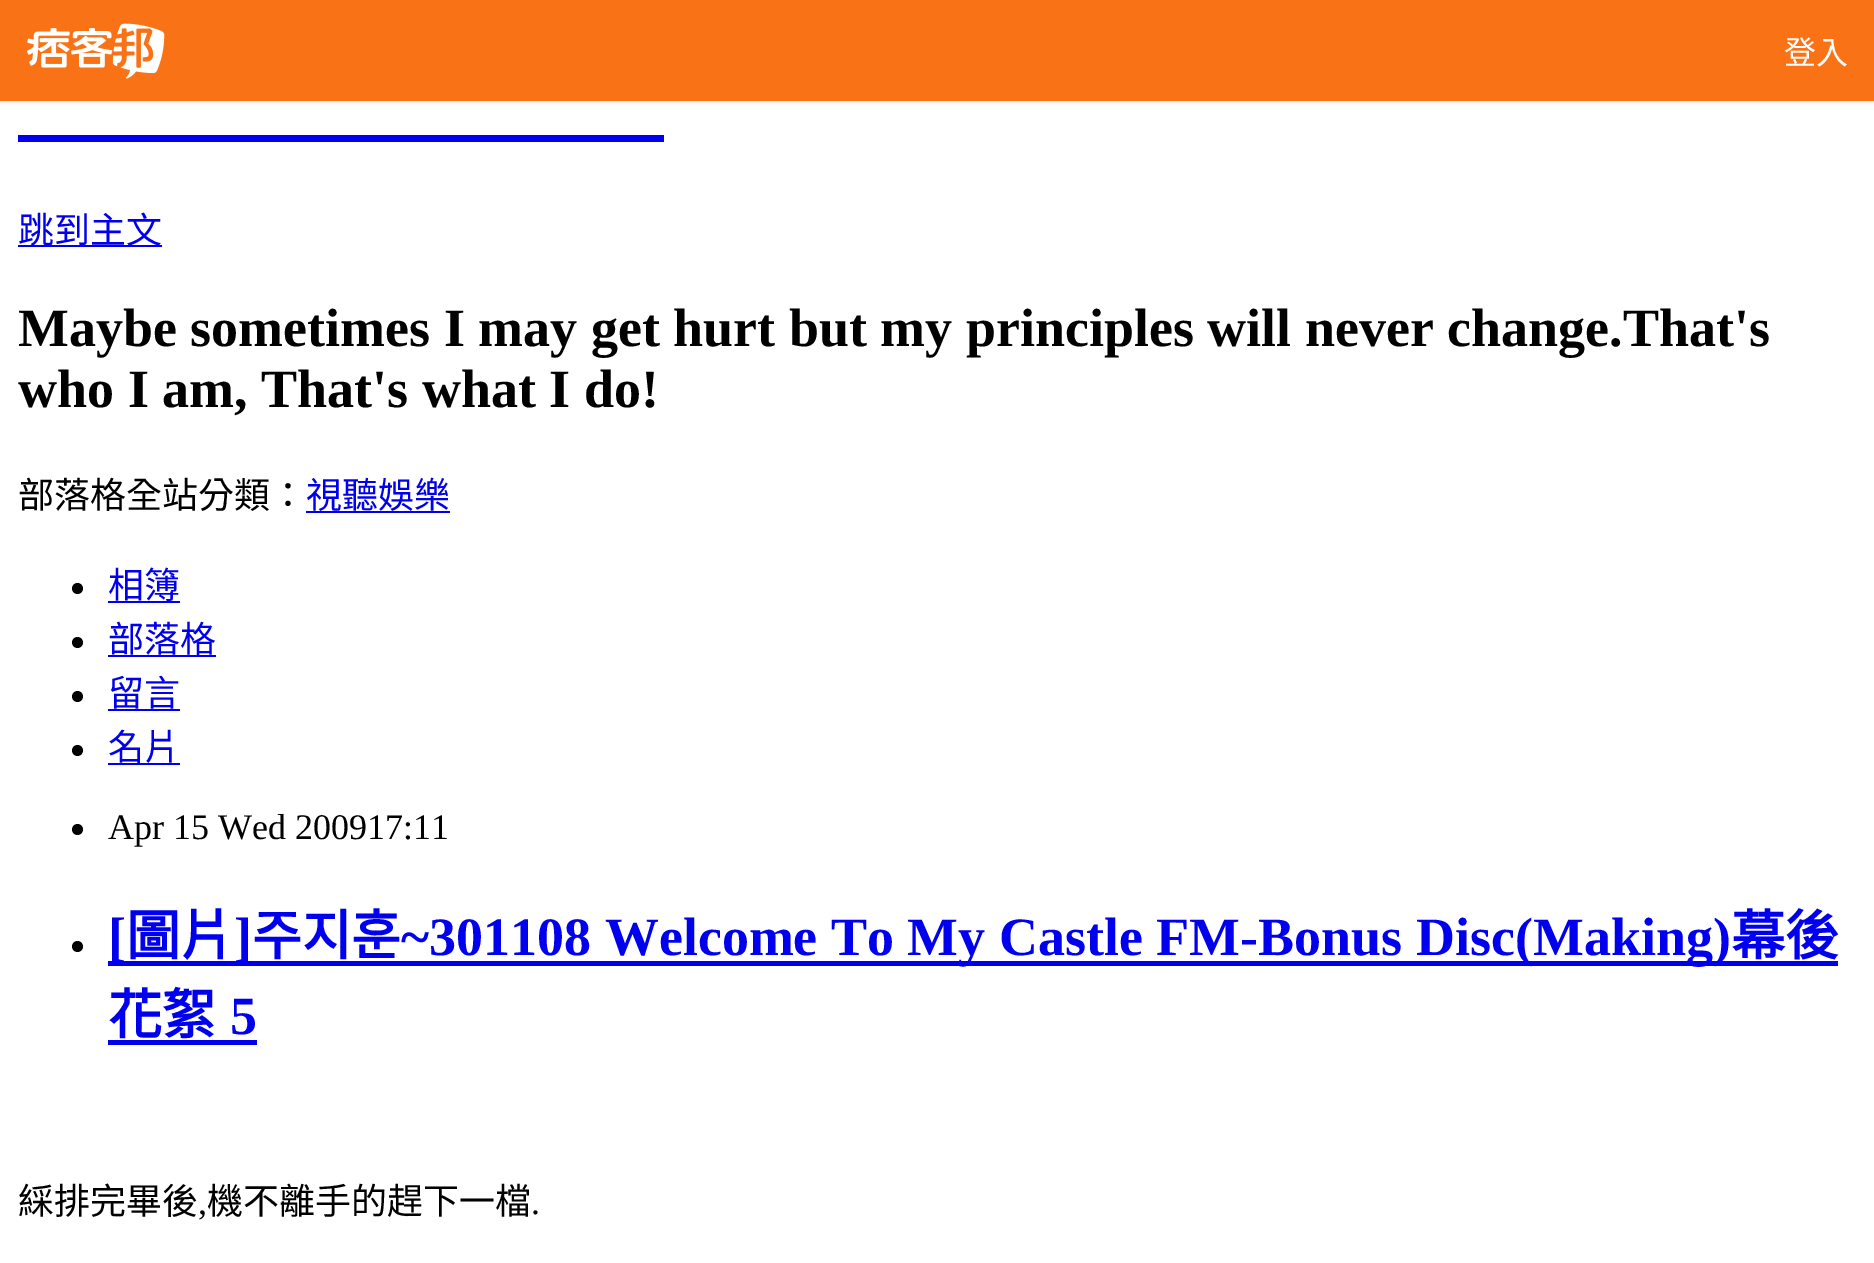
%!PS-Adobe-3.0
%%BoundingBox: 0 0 1874 1263
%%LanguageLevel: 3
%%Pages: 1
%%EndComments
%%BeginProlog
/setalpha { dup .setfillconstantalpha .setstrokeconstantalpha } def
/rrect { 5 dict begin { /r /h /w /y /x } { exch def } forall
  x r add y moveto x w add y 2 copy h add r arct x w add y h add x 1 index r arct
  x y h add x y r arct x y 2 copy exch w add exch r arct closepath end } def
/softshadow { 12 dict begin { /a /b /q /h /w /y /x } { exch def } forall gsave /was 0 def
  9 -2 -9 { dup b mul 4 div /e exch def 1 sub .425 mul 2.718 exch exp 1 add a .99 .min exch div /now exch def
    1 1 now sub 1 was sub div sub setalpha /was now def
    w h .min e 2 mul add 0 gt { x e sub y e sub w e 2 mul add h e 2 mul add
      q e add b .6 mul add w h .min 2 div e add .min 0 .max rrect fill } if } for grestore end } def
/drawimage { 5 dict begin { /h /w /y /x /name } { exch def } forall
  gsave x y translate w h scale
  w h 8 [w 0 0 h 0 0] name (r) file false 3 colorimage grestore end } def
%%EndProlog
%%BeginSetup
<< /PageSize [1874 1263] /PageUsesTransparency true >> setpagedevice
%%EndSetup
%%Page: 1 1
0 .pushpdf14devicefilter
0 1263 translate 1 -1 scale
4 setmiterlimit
1 setgray
0 0 1874 1263 rectfill
0 setgray
0 2 1874 102 0 2 0.05 softshadow
0.976 0.451 0.086 setrgbcolor
0 0 1874 101 rectfill
(images/1.raw) 27 23 138 56 drawimage
0 0 0.933 setrgbcolor
18 135 646 7 rectfill
18 245 144 2 rectfill
306 511 144 2 rectfill
0 setgray
newpath 77.5 588.5 5.5 0 360 arc closepath fill
0 0 0.933 setrgbcolor
108 601 72 2 rectfill
0 setgray
newpath 77.5 642.5 5.5 0 360 arc closepath fill
0 0 0.933 setrgbcolor
108 655 108 2 rectfill
0 setgray
newpath 77.5 696.5 5.5 0 360 arc closepath fill
0 0 0.933 setrgbcolor
108 709 72 2 rectfill
0 setgray
newpath 77.5 750.5 5.5 0 360 arc closepath fill
0 0 0.933 setrgbcolor
108 763 72 2 rectfill
0 setgray
newpath 77.5 829.5 5.5 0 360 arc closepath fill
newpath 77.5 946.5 5.5 0 360 arc closepath fill
0 0 0.933 setrgbcolor
108 961 1730 5 rectfill
108 1040 149 5 rectfill
/NotoSansCJKTC-Regular [32 0 0 -32 0 0] selectfont
1 setgray
1784 64 moveto (登入) show
/NotoSansCJKTC-Regular [36 0 0 -36 0 0] selectfont
0 0 0.933 setrgbcolor
18 243 moveto (跳到主文) show
/LiberationSerif-Bold [54 0 0 -54 0 0] selectfont
0 setgray
18 346 moveto (Maybe sometimes I may get hurt but my principles will never change.That's) show
18 407 moveto (who I am, That's what I do!) show
/NotoSansCJKTC-Regular [36 0 0 -36 0 0] selectfont
18 508 moveto (部落格全站分類：) show
0 0 0.933 setrgbcolor
306 508 moveto (視聽娛樂) show
108 598 moveto (相簿) show
108 652 moveto (部落格) show
108 706 moveto (留言) show
108 760 moveto (名片) show
/LiberationSerif-Regular [36 0 0 -36 0 0] selectfont
0 setgray
108 839 moveto (Apr 15 Wed 200917:11) show
/LiberationSerif-Bold [54 0 0 -54 0 0] selectfont
0 0 0.933 setrgbcolor
108 955 moveto ([) show
/NotoSansCJKTC-Bold [54 0 0 -54 0 0] selectfont
126 955 moveto (圖片) show
/LiberationSerif-Bold [54 0 0 -54 0 0] selectfont
234 955 moveto (]) show
/NotoSansCJKTC-Bold [54 0 0 -54 0 0] selectfont
252 955 moveto (주지훈) show
/LiberationSerif-Bold [54 0 0 -54 0 0] selectfont
401 955 moveto (~301108 Welcome To My Castle FM-Bonus Disc\(Making\)) show
/NotoSansCJKTC-Bold [54 0 0 -54 0 0] selectfont
1731 955 moveto (幕後) show
108 1034 moveto (花絮) show
/LiberationSerif-Bold [54 0 0 -54 0 0] selectfont
230 1034 moveto (5) show
/NotoSansCJKTC-Regular [36 0 0 -36 0 0] selectfont
0 setgray
18 1214 moveto (綵排完畢後) show
/LiberationSerif-Regular [36 0 0 -36 0 0] selectfont
198 1214 moveto (,) show
/NotoSansCJKTC-Regular [36 0 0 -36 0 0] selectfont
207 1214 moveto (機不離手的趕下一檔) show
/LiberationSerif-Regular [36 0 0 -36 0 0] selectfont
531 1214 moveto (.) show
.poppdf14devicefilter showpage
%%EOF
